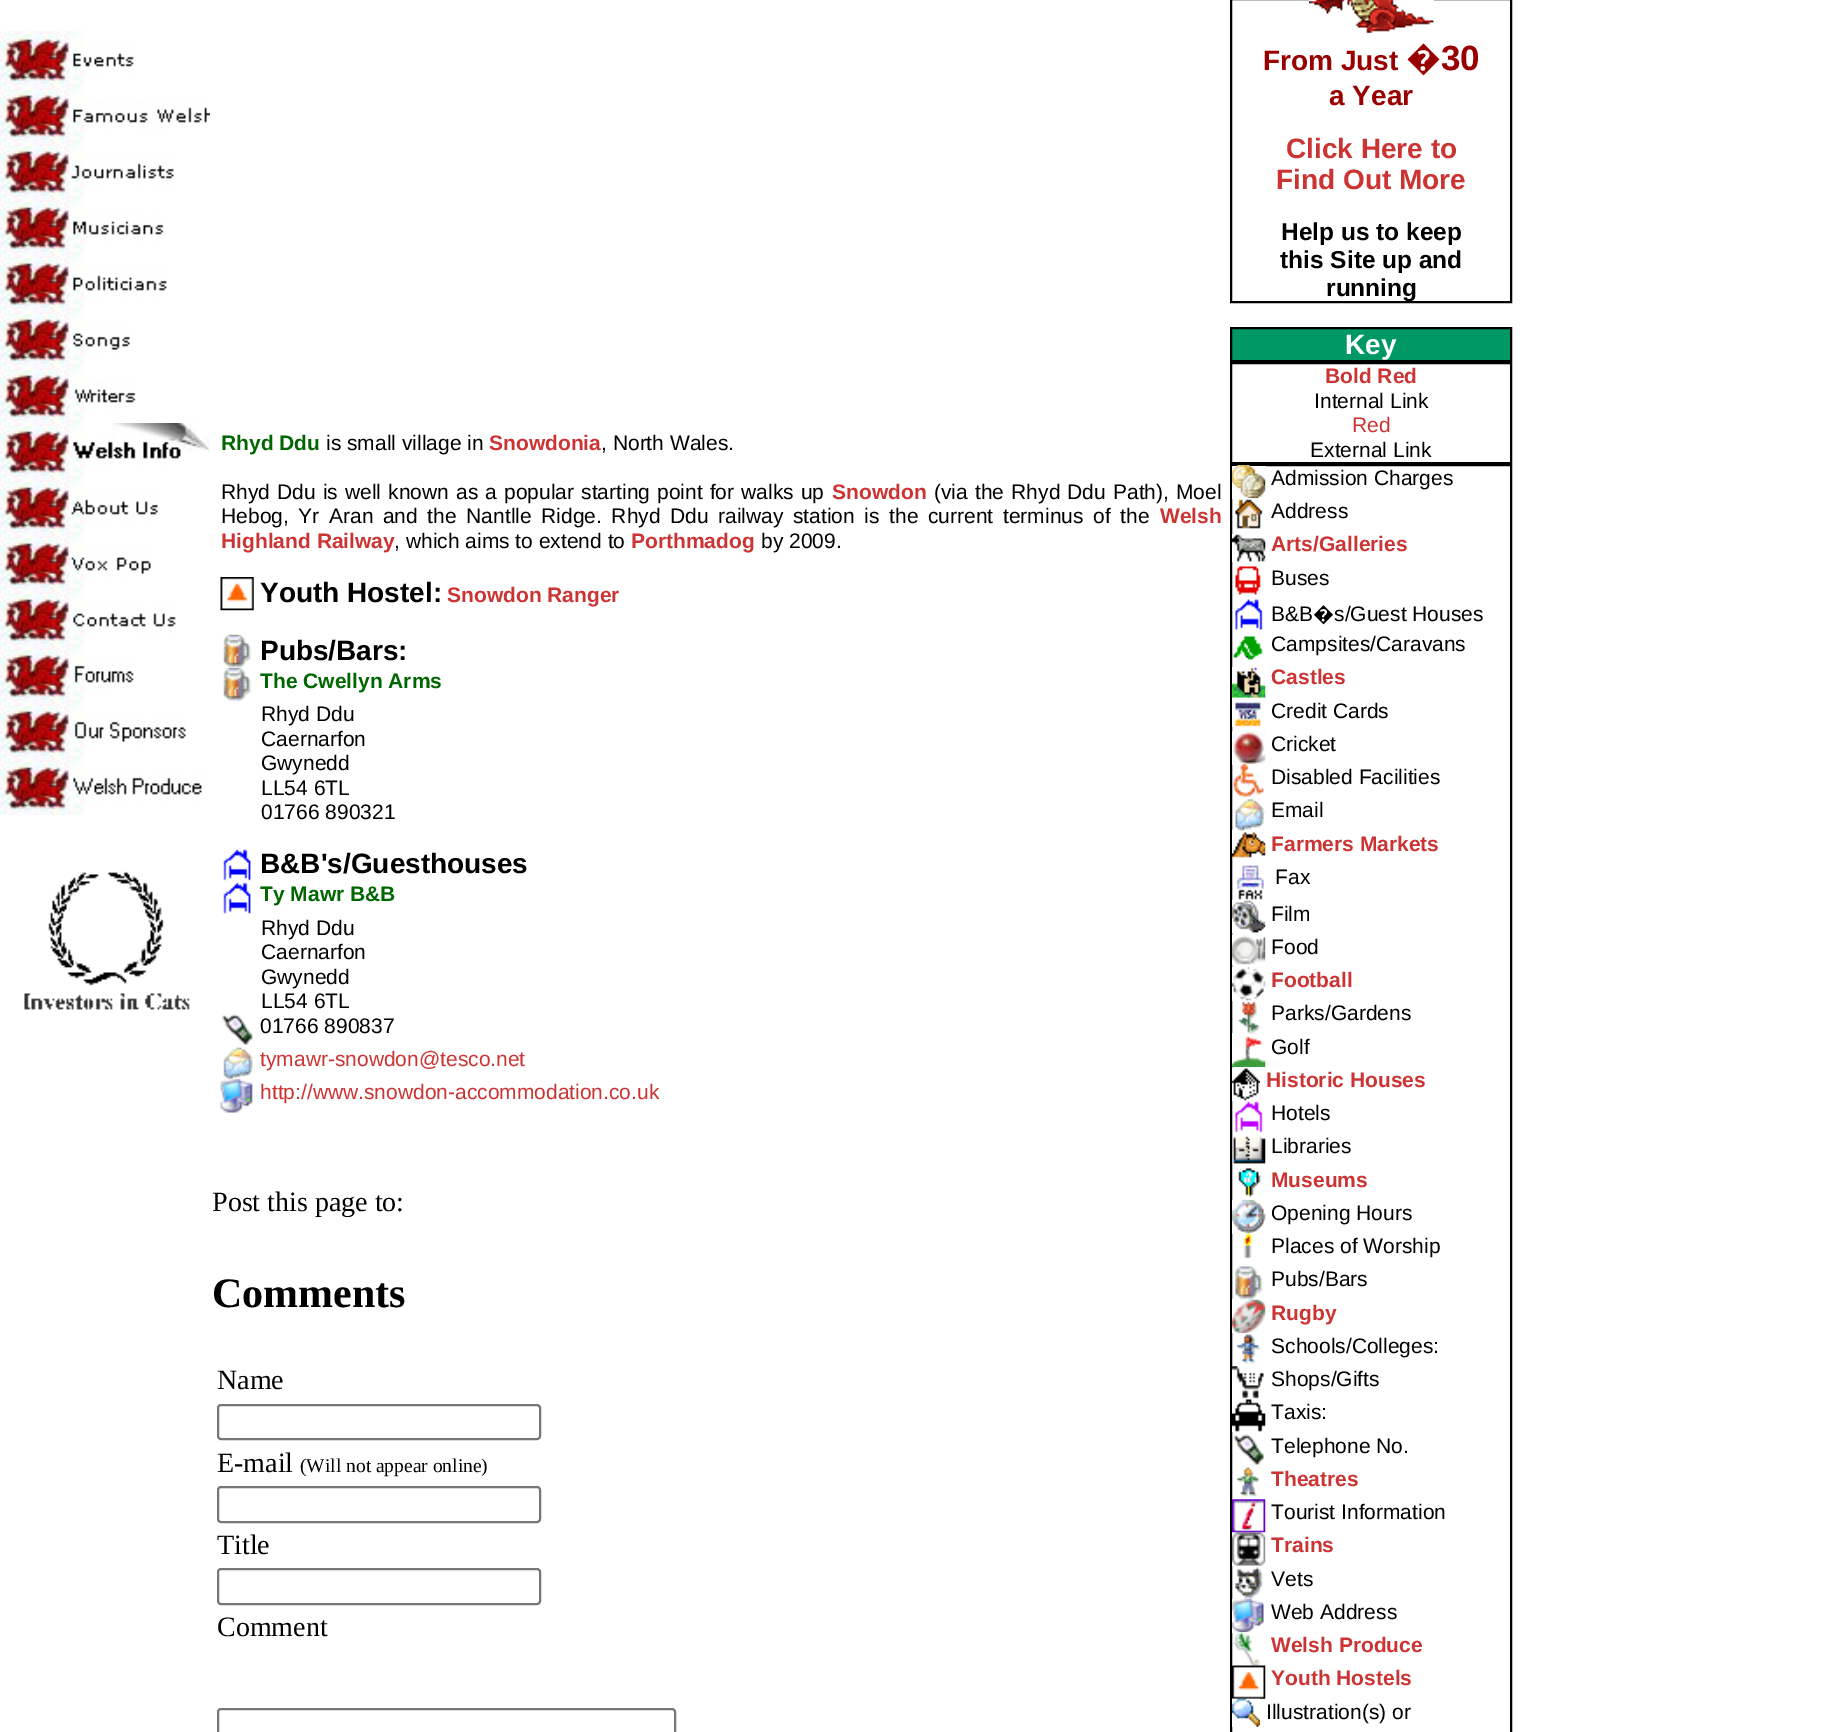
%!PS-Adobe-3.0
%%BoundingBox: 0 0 1847 1732
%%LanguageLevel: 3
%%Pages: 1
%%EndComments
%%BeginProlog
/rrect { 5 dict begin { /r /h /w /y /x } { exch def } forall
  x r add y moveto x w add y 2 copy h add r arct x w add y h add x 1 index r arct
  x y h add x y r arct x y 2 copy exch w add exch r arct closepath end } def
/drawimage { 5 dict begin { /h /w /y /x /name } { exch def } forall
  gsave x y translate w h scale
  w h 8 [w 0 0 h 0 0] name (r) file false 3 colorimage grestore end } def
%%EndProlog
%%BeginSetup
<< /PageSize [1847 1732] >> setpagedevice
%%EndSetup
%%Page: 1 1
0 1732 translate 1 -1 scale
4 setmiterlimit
1 setgray
0 0 1847 1732 rectfill
(images/1.raw) 0 31 134 56 drawimage
(images/2.raw) 0 87 210 56 drawimage
(images/3.raw) 0 143 174 56 drawimage
(images/4.raw) 0 199 164 56 drawimage
(images/5.raw) 0 255 167 56 drawimage
(images/6.raw) 0 311 130 56 drawimage
(images/7.raw) 0 367 136 56 drawimage
(images/8.raw) 0 423 210 56 drawimage
(images/9.raw) 0 479 158 56 drawimage
(images/10.raw) 0 535 151 56 drawimage
(images/11.raw) 0 591 176 56 drawimage
(images/12.raw) 0 647 134 56 drawimage
(images/13.raw) 0 703 186 56 drawimage
(images/14.raw) 0 759 202 56 drawimage
(images/15.raw) 24 871 166 139 drawimage
(images/16.raw) 220 577 34 34 drawimage
(images/17.raw) 223 634 29 34 drawimage
(images/18.raw) 223 668 29 34 drawimage
(images/19.raw) 223 849 28 32 drawimage
(images/20.raw) 223 882 28 32 drawimage
(images/21.raw) 222 1014 32 31 drawimage
(images/22.raw) 223 1047 31 33 drawimage
(images/23.raw) 220 1079 33 34 drawimage
0.463 setgray
2 setlinewidth
218 1405 322 34 3 rrect stroke
218 1487 322 35 3 rrect stroke
218 1569 322 35 3 rrect stroke
218 1709 457 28 3 rrect stroke
0 setgray
1231 -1 280 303 rectstroke
(images/24.raw) 1309 0 125 33 drawimage
0 0.6 0.4 setrgbcolor
newpath 1231 328 moveto 1511 328 lineto 1511 361 lineto 1231 361 lineto closepath gsave fill grestore
0 setgray
stroke
1231 363 280 100 rectstroke
1231 465 280 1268 rectstroke
(images/25.raw) 1232 465 34 34 drawimage
(images/26.raw) 1235 498 28 31 drawimage
(images/27.raw) 1232 534 34 28 drawimage
(images/28.raw) 1235 566 26 29 drawimage
(images/29.raw) 1235 599 28 31 drawimage
(images/30.raw) 1233 636 30 24 drawimage
(images/31.raw) 1232 667 34 31 drawimage
(images/32.raw) 1232 697 33 30 drawimage
(images/33.raw) 1232 731 34 34 drawimage
(images/34.raw) 1233 764 31 34 drawimage
(images/35.raw) 1235 797 31 34 drawimage
(images/36.raw) 1232 830 34 28 drawimage
(images/37.raw) 1236 865 28 35 drawimage
(images/38.raw) 1232 900 34 33 drawimage
(images/39.raw) 1232 935 34 30 drawimage
(images/40.raw) 1232 967 34 34 drawimage
(images/41.raw) 1238 1000 23 34 drawimage
(images/42.raw) 1232 1033 34 34 drawimage
(images/43.raw) 1232 1068 28 33 drawimage
(images/44.raw) 1235 1101 28 32 drawimage
(images/45.raw) 1233 1136 33 28 drawimage
(images/46.raw) 1238 1168 23 29 drawimage
(images/47.raw) 1232 1200 34 34 drawimage
(images/48.raw) 1243 1233 13 26 drawimage
(images/49.raw) 1235 1266 29 34 drawimage
(images/50.raw) 1232 1299 34 34 drawimage
(images/51.raw) 1236 1334 26 31 drawimage
(images/52.raw) 1232 1366 32 33 drawimage
(images/53.raw) 1232 1399 34 33 drawimage
(images/54.raw) 1233 1434 32 31 drawimage
(images/55.raw) 1236 1467 23 30 drawimage
(images/56.raw) 1232 1499 34 34 drawimage
(images/57.raw) 1232 1532 34 34 drawimage
(images/58.raw) 1235 1565 28 34 drawimage
(images/59.raw) 1232 1599 32 34 drawimage
(images/60.raw) 1233 1632 28 34 drawimage
(images/61.raw) 1232 1665 34 34 drawimage
(images/62.raw) 1232 1698 28 29 drawimage
/LiberationSans-Bold [21 0 0 -21 0 0] selectfont
0 0.4 0 setrgbcolor
221 450 moveto (Rhyd Ddu) show
/LiberationSans-Regular [21 0 0 -21 0 0] selectfont
0 setgray
326 450 moveto (is small village in) show
/LiberationSans-Bold [21 0 0 -21 0 0] selectfont
0.8 0.2 0.2 setrgbcolor
489 450 moveto (Snowdonia) show
/LiberationSans-Regular [21 0 0 -21 0 0] selectfont
0 setgray
601 450 moveto (, North Wales.) show
221 499 moveto 1.25 0 32 (Rhyd Ddu is well known as a popular starting point for walks up) widthshow
/LiberationSans-Bold [21 0 0 -21 0 0] selectfont
0.8 0.2 0.2 setrgbcolor
832 499 moveto (Snowdon) show
/LiberationSans-Regular [21 0 0 -21 0 0] selectfont
0 setgray
934 499 moveto 1.25 0 32 (\(via the Rhyd Ddu Path\), Moel) widthshow
221 523 moveto 3.75 0 32 (Hebog, Yr Aran and the Nantlle Ridge. Rhyd Ddu railway station is the current terminus of the) widthshow
/LiberationSans-Bold [21 0 0 -21 0 0] selectfont
0.8 0.2 0.2 setrgbcolor
1160 523 moveto (Welsh) show
221 548 moveto (Highland Railway) show
/LiberationSans-Regular [21 0 0 -21 0 0] selectfont
0 setgray
394 548 moveto (, which aims to extend to) show
/LiberationSans-Bold [21 0 0 -21 0 0] selectfont
0.8 0.2 0.2 setrgbcolor
631 548 moveto (Porthmadog) show
/LiberationSans-Regular [21 0 0 -21 0 0] selectfont
0 setgray
761 548 moveto (by 2009.) show
/LiberationSans-Bold [28 0 0 -28 0 0] selectfont
260 602 moveto (Youth Hostel:) show
/LiberationSans-Bold [21 0 0 -21 0 0] selectfont
0.8 0.2 0.2 setrgbcolor
447 602 moveto (Snowdon Ranger) show
/LiberationSans-Bold [28 0 0 -28 0 0] selectfont
0 setgray
260 660 moveto (Pubs/Bars:) show
/LiberationSans-Bold [21 0 0 -21 0 0] selectfont
0 0.4 0 setrgbcolor
260 688 moveto (The Cwellyn Arms) show
/LiberationSans-Regular [21 0 0 -21 0 0] selectfont
0 setgray
261 721 moveto (Rhyd Ddu) show
261 746 moveto (Caernarfon) show
261 770 moveto (Gwynedd) show
261 795 moveto (LL54 6TL) show
261 819 moveto (01766 890321) show
/LiberationSans-Bold [28 0 0 -28 0 0] selectfont
260 873 moveto (B&B's/Guesthouses) show
/LiberationSans-Bold [21 0 0 -21 0 0] selectfont
0 0.4 0 setrgbcolor
260 901 moveto (Ty Mawr B&B) show
/LiberationSans-Regular [21 0 0 -21 0 0] selectfont
0 setgray
261 935 moveto (Rhyd Ddu) show
261 959 moveto (Caernarfon) show
261 984 moveto (Gwynedd) show
261 1008 moveto (LL54 6TL) show
260 1033 moveto (01766 890837) show
0.8 0.2 0.2 setrgbcolor
260 1066 moveto (tymawr-snowdon@tesco.net) show
260 1099 moveto (http://www.snowdon-accommodation.co.uk) show
/LiberationSerif-Regular [28 0 0 -28 0 0] selectfont
0 setgray
212 1211 moveto (Post this page to:) show
/LiberationSerif-Bold [42 0 0 -42 0 0] selectfont
212 1307 moveto (Comments) show
/LiberationSerif-Regular [28 0 0 -28 0 0] selectfont
217 1389 moveto (Name) show
217 1472 moveto (E-mail) show
/LiberationSerif-Regular [19.5 0 0 -19.5 0 0] selectfont
300 1472 moveto (\(Will not appear online\)) show
/LiberationSerif-Regular [28 0 0 -28 0 0] selectfont
217 1554 moveto (Title) show
217 1636 moveto (Comment) show
/LiberationSans-Bold [28 0 0 -28 0 0] selectfont
0.6 0 0 setrgbcolor
1263 70 moveto (From Just) show
/NotoSans-Bold [35 0 0 -35 0 0] selectfont
1406 70 moveto (�) show
/LiberationSans-Bold [35 0 0 -35 0 0] selectfont
1441 70 moveto (30) show
/LiberationSans-Bold [28 0 0 -28 0 0] selectfont
1329 105 moveto (a Year) show
0.8 0.2 0.2 setrgbcolor
1286 158 moveto (Click Here to) show
1276 189 moveto (Find Out More) show
/LiberationSans-Bold [24.5 0 0 -24.5 0 0] selectfont
0 setgray
1281 240 moveto (Help us to keep) show
1280 268 moveto (this Site up and) show
1326 296 moveto (running) show
/LiberationSans-Bold [28 0 0 -28 0 0] selectfont
1 setgray
1345 354 moveto (Key) show
/LiberationSans-Bold [21 0 0 -21 0 0] selectfont
0.8 0.2 0.2 setrgbcolor
1325 383 moveto (Bold Red) show
/LiberationSans-Regular [21 0 0 -21 0 0] selectfont
0 setgray
1314 408 moveto (Internal Link) show
0.8 0.2 0.2 setrgbcolor
1352 432 moveto (Red) show
0 setgray
1310 457 moveto (External Link) show
1271 485 moveto (Admission Charges) show
1271 518 moveto (Address) show
/LiberationSans-Bold [21 0 0 -21 0 0] selectfont
0.8 0.2 0.2 setrgbcolor
1271 551 moveto (Arts/Galleries) show
/LiberationSans-Regular [21 0 0 -21 0 0] selectfont
0 setgray
1271 585 moveto (Buses) show
1271 621 moveto (B&B) show
/NotoSans-Regular [21 0 0 -21 0 0] selectfont
1313 621 moveto (�) show
/LiberationSans-Regular [21 0 0 -21 0 0] selectfont
1334 621 moveto (s/Guest Houses) show
1271 651 moveto (Campsites/Caravans) show
/LiberationSans-Bold [21 0 0 -21 0 0] selectfont
0.8 0.2 0.2 setrgbcolor
1271 684 moveto (Castles) show
/LiberationSans-Regular [21 0 0 -21 0 0] selectfont
0 setgray
1271 718 moveto (Credit Cards) show
1271 751 moveto (Cricket) show
1271 784 moveto (Disabled Facilities) show
1271 817 moveto (Email) show
/LiberationSans-Bold [21 0 0 -21 0 0] selectfont
0.8 0.2 0.2 setrgbcolor
1271 851 moveto (Farmers Markets) show
/LiberationSans-Regular [21 0 0 -21 0 0] selectfont
0 setgray
1275 884 moveto (Fax) show
1271 921 moveto (Film) show
1271 954 moveto (Food) show
/LiberationSans-Bold [21 0 0 -21 0 0] selectfont
0.8 0.2 0.2 setrgbcolor
1271 987 moveto (Football) show
/LiberationSans-Regular [21 0 0 -21 0 0] selectfont
0 setgray
1271 1020 moveto (Parks/Gardens) show
1271 1054 moveto (Golf) show
/LiberationSans-Bold [21 0 0 -21 0 0] selectfont
0.8 0.2 0.2 setrgbcolor
1266 1087 moveto (Historic Houses) show
/LiberationSans-Regular [21 0 0 -21 0 0] selectfont
0 setgray
1271 1120 moveto (Hotels) show
1271 1153 moveto (Libraries) show
/LiberationSans-Bold [21 0 0 -21 0 0] selectfont
0.8 0.2 0.2 setrgbcolor
1271 1187 moveto (Museums) show
/LiberationSans-Regular [21 0 0 -21 0 0] selectfont
0 setgray
1271 1220 moveto (Opening Hours) show
1271 1253 moveto (Places of Worship) show
1271 1286 moveto (Pubs/Bars) show
/LiberationSans-Bold [21 0 0 -21 0 0] selectfont
0.8 0.2 0.2 setrgbcolor
1271 1320 moveto (Rugby) show
/LiberationSans-Regular [21 0 0 -21 0 0] selectfont
0 setgray
1271 1353 moveto (Schools/Colleges:) show
1271 1386 moveto (Shops/Gifts) show
1271 1419 moveto (Taxis:) show
1271 1453 moveto (Telephone No.) show
/LiberationSans-Bold [21 0 0 -21 0 0] selectfont
0.8 0.2 0.2 setrgbcolor
1271 1486 moveto (Theatres) show
/LiberationSans-Regular [21 0 0 -21 0 0] selectfont
0 setgray
1271 1519 moveto (Tourist Information) show
/LiberationSans-Bold [21 0 0 -21 0 0] selectfont
0.8 0.2 0.2 setrgbcolor
1271 1552 moveto (Trains) show
/LiberationSans-Regular [21 0 0 -21 0 0] selectfont
0 setgray
1271 1586 moveto (Vets) show
1271 1619 moveto (Web Address) show
/LiberationSans-Bold [21 0 0 -21 0 0] selectfont
0.8 0.2 0.2 setrgbcolor
1271 1652 moveto (Welsh Produce) show
1271 1685 moveto (Youth Hostels) show
/LiberationSans-Regular [21 0 0 -21 0 0] selectfont
0 setgray
1266 1719 moveto (Illustration\(s\) or) show
showpage
%%EOF
